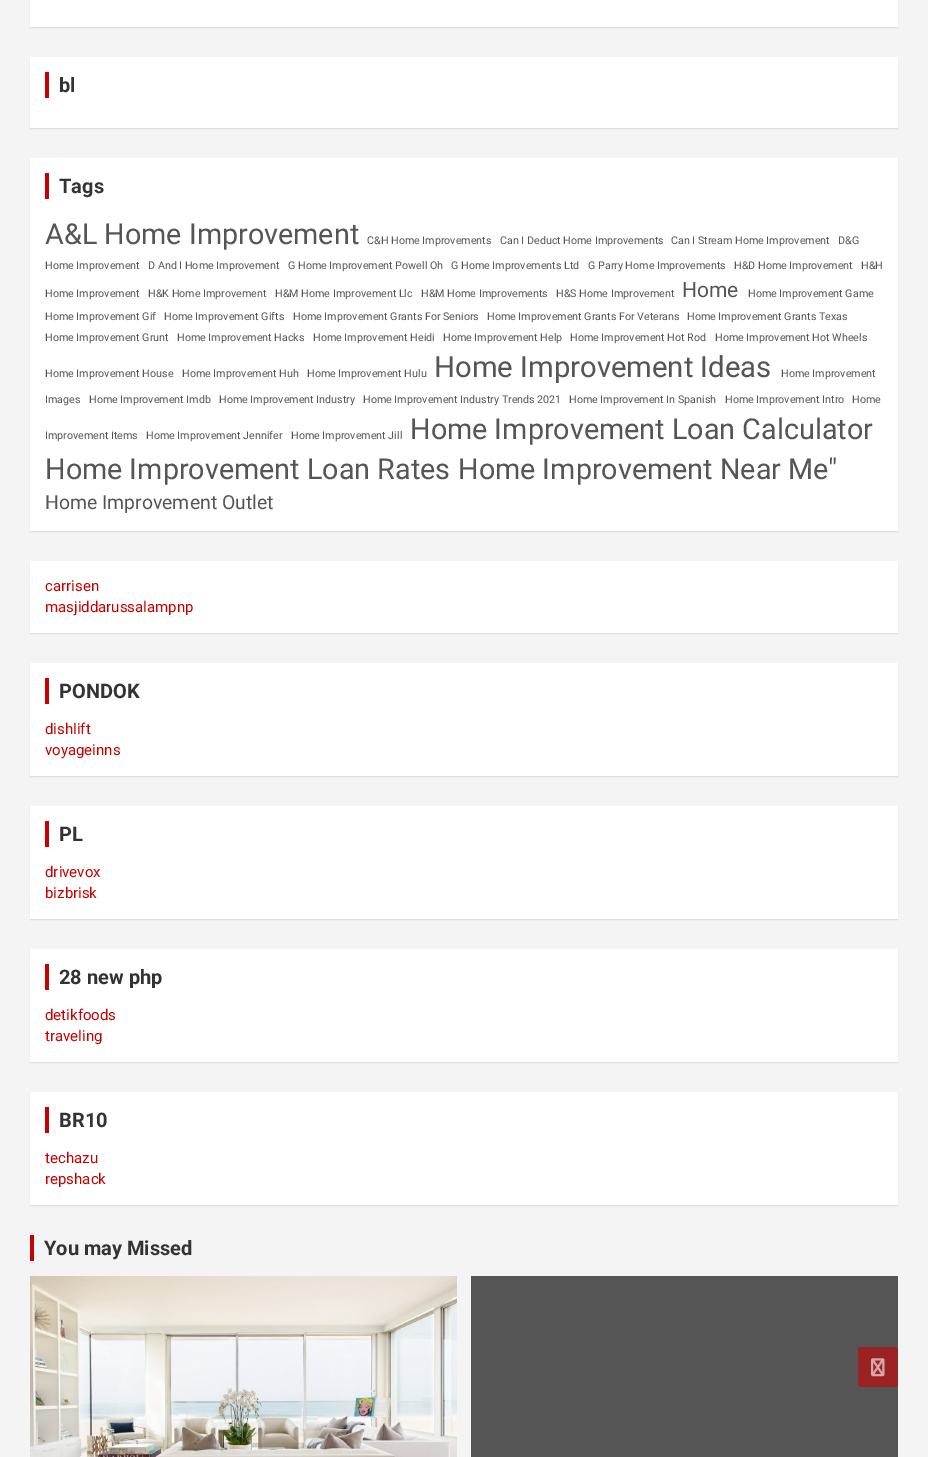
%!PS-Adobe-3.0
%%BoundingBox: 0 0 928 1457
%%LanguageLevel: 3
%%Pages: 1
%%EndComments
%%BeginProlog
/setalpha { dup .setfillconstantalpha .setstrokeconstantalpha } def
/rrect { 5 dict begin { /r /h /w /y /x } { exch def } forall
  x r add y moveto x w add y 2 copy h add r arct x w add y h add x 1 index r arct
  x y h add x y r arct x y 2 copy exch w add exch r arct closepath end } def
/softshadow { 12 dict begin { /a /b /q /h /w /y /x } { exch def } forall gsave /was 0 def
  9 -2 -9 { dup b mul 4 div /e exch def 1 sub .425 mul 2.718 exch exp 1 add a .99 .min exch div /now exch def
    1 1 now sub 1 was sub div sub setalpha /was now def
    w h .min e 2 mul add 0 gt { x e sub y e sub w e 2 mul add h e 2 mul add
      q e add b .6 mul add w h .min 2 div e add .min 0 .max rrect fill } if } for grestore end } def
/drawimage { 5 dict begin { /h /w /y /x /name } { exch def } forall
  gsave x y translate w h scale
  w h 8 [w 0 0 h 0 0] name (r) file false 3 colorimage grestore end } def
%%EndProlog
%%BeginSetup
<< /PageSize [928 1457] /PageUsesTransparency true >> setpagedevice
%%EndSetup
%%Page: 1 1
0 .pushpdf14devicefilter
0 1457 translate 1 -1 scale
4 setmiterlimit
0.957 setgray
0 0 928 1457 rectfill
0 setgray
30 -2 868 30 0 0.5 0.1 softshadow
1 setgray
30 0 868 27 rectfill
0 setgray
30 58 868 71 0 0.5 0.1 softshadow
1 setgray
30 57 868 71 rectfill
0.784 0 0 setrgbcolor
45 72 4 26 rectfill
0 setgray
30 159 868 373 0 0.5 0.1 softshadow
1 setgray
30 158 868 373 rectfill
0.784 0 0 setrgbcolor
45 173 4 26 rectfill
0 setgray
30 562 868 72 0 0.5 0.1 softshadow
1 setgray
30 561 868 72 rectfill
0 setgray
30 664 868 113 0 0.5 0.1 softshadow
1 setgray
30 663 868 113 rectfill
0.784 0 0 setrgbcolor
45 678 4 26 rectfill
0 setgray
30 807 868 113 0 0.5 0.1 softshadow
1 setgray
30 806 868 113 rectfill
0.784 0 0 setrgbcolor
45 821 4 26 rectfill
0 setgray
30 950 868 113 0 0.5 0.1 softshadow
1 setgray
30 949 868 113 rectfill
0.784 0 0 setrgbcolor
45 964 4 26 rectfill
0 setgray
30 1093 868 113 0 0.5 0.1 softshadow
1 setgray
30 1092 868 113 rectfill
0.784 0 0 setrgbcolor
45 1107 4 26 rectfill
30 1235 4 26 rectfill
(images/1.raw) 30 1276 427 181 drawimage
0.333 setgray
471 1276 427 181 rectfill
0.604 0.133 0.133 setrgbcolor
858 1347 40 40 3 rrect fill
(images/2.raw) 871 1358 14 19 drawimage
/Roboto-Bold [20 0 0 -20 0 0] selectfont
0.2 setgray
59 92 moveto (bl) show
59 193 moveto (Tags) show
/Roboto-Regular [28.75 0 0 -28.75 0 0] selectfont
0.333 setgray
45 244 moveto (A&L Home Improvement) show
/Roboto-Regular [10.7 0 0 -10.7 0 0] selectfont
367 244 moveto (C&H Home Improvements) show
500 244 moveto (Can I Deduct Home Improvements) show
671 244 moveto (Can I Stream Home Improvement) show
838 244 moveto (D&G) show
45 269 moveto (Home Improvement) show
148 269 moveto (D And I Home Improvement) show
288 269 moveto (G Home Improvement Powell Oh) show
451 269 moveto (G Home Improvements Ltd) show
588 269 moveto (G Parry Home Improvements) show
734 269 moveto (H&D Home Improvement) show
861 269 moveto (H&H) show
45 297 moveto (Home Improvement) show
148 297 moveto (H&K Home Improvement) show
275 297 moveto (H&M Home Improvement Llc) show
421 297 moveto (H&M Home Improvements) show
556 297 moveto (H&S Home Improvement) show
/Roboto-Regular [21 0 0 -21 0 0] selectfont
682 297 moveto (Home) show
/Roboto-Regular [10.7 0 0 -10.7 0 0] selectfont
748 297 moveto (Home Improvement Game) show
45 320 moveto (Home Improvement Gif) show
164 320 moveto (Home Improvement Gifts) show
293 320 moveto (Home Improvement Grants For Seniors) show
487 320 moveto (Home Improvement Grants For Veterans) show
687 320 moveto (Home Improvement Grants Texas) show
45 341 moveto (Home Improvement Grunt) show
177 341 moveto (Home Improvement Hacks) show
313 341 moveto (Home Improvement Heidi) show
443 341 moveto (Home Improvement Help) show
570 341 moveto (Home Improvement Hot Rod) show
715 341 moveto (Home Improvement Hot Wheels) show
45 377 moveto (Home Improvement House) show
182 377 moveto (Home Improvement Huh) show
307 377 moveto (Home Improvement Hulu) show
/Roboto-Regular [29.25 0 0 -29.25 0 0] selectfont
434 377 moveto (Home Improvement Ideas) show
/Roboto-Regular [10.7 0 0 -10.7 0 0] selectfont
781 377 moveto (Home Improvement) show
45 403 moveto (Images) show
89 403 moveto (Home Improvement Imdb) show
219 403 moveto (Home Improvement Industry) show
363 403 moveto (Home Improvement Industry Trends 2021) show
569 403 moveto (Home Improvement In Spanish) show
725 403 moveto (Home Improvement Intro) show
852 403 moveto (Home) show
45 439 moveto (Improvement Items) show
146 439 moveto (Home Improvement Jennifer) show
291 439 moveto (Home Improvement Jill) show
/Roboto-Regular [28.75 0 0 -28.75 0 0] selectfont
410 439 moveto (Home Improvement Loan Calculator) show
45 479 moveto (Home Improvement Loan Rates) show
458 479 moveto (Home Improvement Near Me") show
/Roboto-Regular [19.4 0 0 -19.4 0 0] selectfont
45 509 moveto (Home Improvement Outlet) show
/Roboto-Regular [15 0 0 -15 0 0] selectfont
0.784 0 0 setrgbcolor
45 591 moveto (carrisen) show
45 612 moveto (masjiddarussalampnp) show
/Roboto-Bold [20 0 0 -20 0 0] selectfont
0.2 setgray
59 698 moveto (PONDOK) show
/Roboto-Regular [15 0 0 -15 0 0] selectfont
0.784 0 0 setrgbcolor
45 734 moveto (dishlift) show
45 755 moveto (voyageinns) show
/Roboto-Bold [20 0 0 -20 0 0] selectfont
0.2 setgray
59 841 moveto (PL) show
/Roboto-Regular [15 0 0 -15 0 0] selectfont
0.784 0 0 setrgbcolor
45 877 moveto (drivevox) show
45 898 moveto (bizbrisk) show
/Roboto-Bold [20 0 0 -20 0 0] selectfont
0.2 setgray
59 984 moveto (28 new php) show
/Roboto-Regular [15 0 0 -15 0 0] selectfont
0.784 0 0 setrgbcolor
45 1020 moveto (detikfoods) show
45 1041 moveto (traveling) show
/Roboto-Bold [20 0 0 -20 0 0] selectfont
0.2 setgray
59 1127 moveto (BR10) show
/Roboto-Regular [15 0 0 -15 0 0] selectfont
0.784 0 0 setrgbcolor
45 1163 moveto (techazu) show
45 1184 moveto (repshack) show
/Roboto-Bold [20 0 0 -20 0 0] selectfont
0.2 setgray
44 1255 moveto (You may Missed) show
.poppdf14devicefilter showpage
%%EOF
